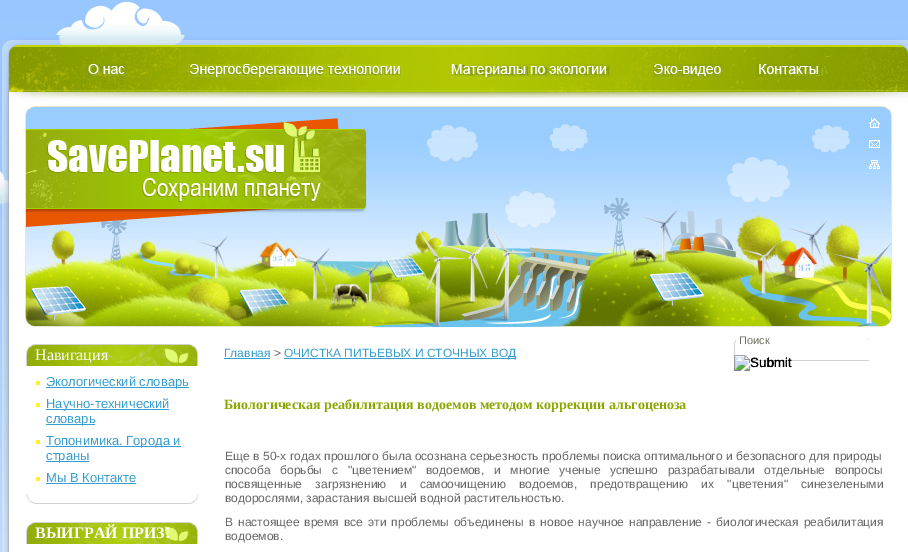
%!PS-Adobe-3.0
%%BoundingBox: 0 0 908 552
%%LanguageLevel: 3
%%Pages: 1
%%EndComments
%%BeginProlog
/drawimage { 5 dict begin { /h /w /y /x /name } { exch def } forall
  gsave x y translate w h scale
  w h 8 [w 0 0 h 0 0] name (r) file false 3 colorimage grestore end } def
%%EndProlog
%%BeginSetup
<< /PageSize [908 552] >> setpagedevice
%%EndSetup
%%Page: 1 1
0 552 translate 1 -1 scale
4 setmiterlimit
1 setgray
0 0 908 552 rectfill
(images/1.raw) 0 0 908 35 drawimage
(images/2.raw) 0 1 181 34 drawimage
(images/3.raw) 0 35 908 517 drawimage
(images/4.raw) 9 45 899 61 drawimage
(images/5.raw) 86 64 737 13 drawimage
(images/6.raw) 24 106 868 222 drawimage
(images/7.raw) 26 118 341 109 drawimage
(images/8.raw) 869 118 11 51 drawimage
(images/9.raw) 734 339 135 22 drawimage
736 339 132 9 rectfill
(images/10.raw) 734 355 57 16 drawimage
(images/11.raw) 26 494 172 10 drawimage
(images/12.raw) 26 344 172 22 drawimage
1 0.933 0.196 setrgbcolor
36 381 4 4 rectfill
0.212 0.62 0.812 setrgbcolor
46 387 143 1 rectfill
1 0.933 0.196 setrgbcolor
36 403 4 4 rectfill
0.212 0.62 0.812 setrgbcolor
46 409 123 1 rectfill
46 424 49 1 rectfill
1 0.933 0.196 setrgbcolor
36 440 4 4 rectfill
0.212 0.62 0.812 setrgbcolor
46 446 135 1 rectfill
46 461 43 1 rectfill
1 0.933 0.196 setrgbcolor
36 477 4 4 rectfill
0.212 0.62 0.812 setrgbcolor
46 483 90 1 rectfill
(images/12.raw) 26 522 172 22 drawimage
224 358 46 1 rectfill
284 358 232 1 rectfill
/LiberationSans-Regular [11 0 0 -11 0 0] selectfont
0.431 0.439 0.376 setrgbcolor
739 344 moveto (Поиск) show
/LiberationSans-Regular [13.5 0 0 -13.5 0 0] selectfont
0 setgray
750 367 moveto (Submit) show
/LiberationSerif-Regular [16 0 0 -16 0 0] selectfont
1 setgray
35 360 moveto (Навигация) show
/LiberationSans-Regular [13 0 0 -13 0 0] selectfont
0.212 0.62 0.812 setrgbcolor
46 386 moveto (Экологический словарь) show
46 408 moveto (Научно-технический) show
46 423 moveto (словарь) show
46 445 moveto (Топонимика. Города и) show
46 460 moveto (страны) show
46 482 moveto (Мы В Контакте) show
/LiberationSerif-Bold [16 0 0 -16 0 0] selectfont
1 setgray
35 538 moveto (ВЫИГРАЙ ПРИЗ!) show
/LiberationSans-Regular [12 0 0 -12 0 0] selectfont
0.212 0.62 0.812 setrgbcolor
224 357 moveto (Главная) show
0.404 setgray
274 357 moveto (>) show
0.212 0.62 0.812 setrgbcolor
284 357 moveto (ОЧИСТКА ПИТЬЕВЫХ И СТОЧНЫХ ВОД) show
/LiberationSerif-Bold [14 0 0 -14 0 0] selectfont
0.553 0.651 0.004 setrgbcolor
224 409 moveto (Биологическая реабилитация водоемов методом коррекции альгоценоза) show
/LiberationSans-Regular [12 0 0 -12 0 0] selectfont
0.404 setgray
225 460 moveto 0.25 0 32 (Еще в 50-х годах прошлого была осознана серьезность проблемы поиска оптимального и безопасного для природы) widthshow
225 474 moveto 6.4 0 32 (способа борьбы с "цветением" водоемов, и многие ученые успешно разрабатывали отдельные вопросы) widthshow
225 488 moveto 10 0 32 (посвященные загрязнению и самоочищению водоемов, предотвращению их "цветения" синезелеными) widthshow
225 502 moveto (водорослями, зарастания высшей водной растительностью.) show
225 526 moveto 1.75 0 32 (В настоящее время все эти проблемы объединены в новое научное направление - биологическая реабилитация) widthshow
225 540 moveto (водоемов.) show
showpage
%%EOF
